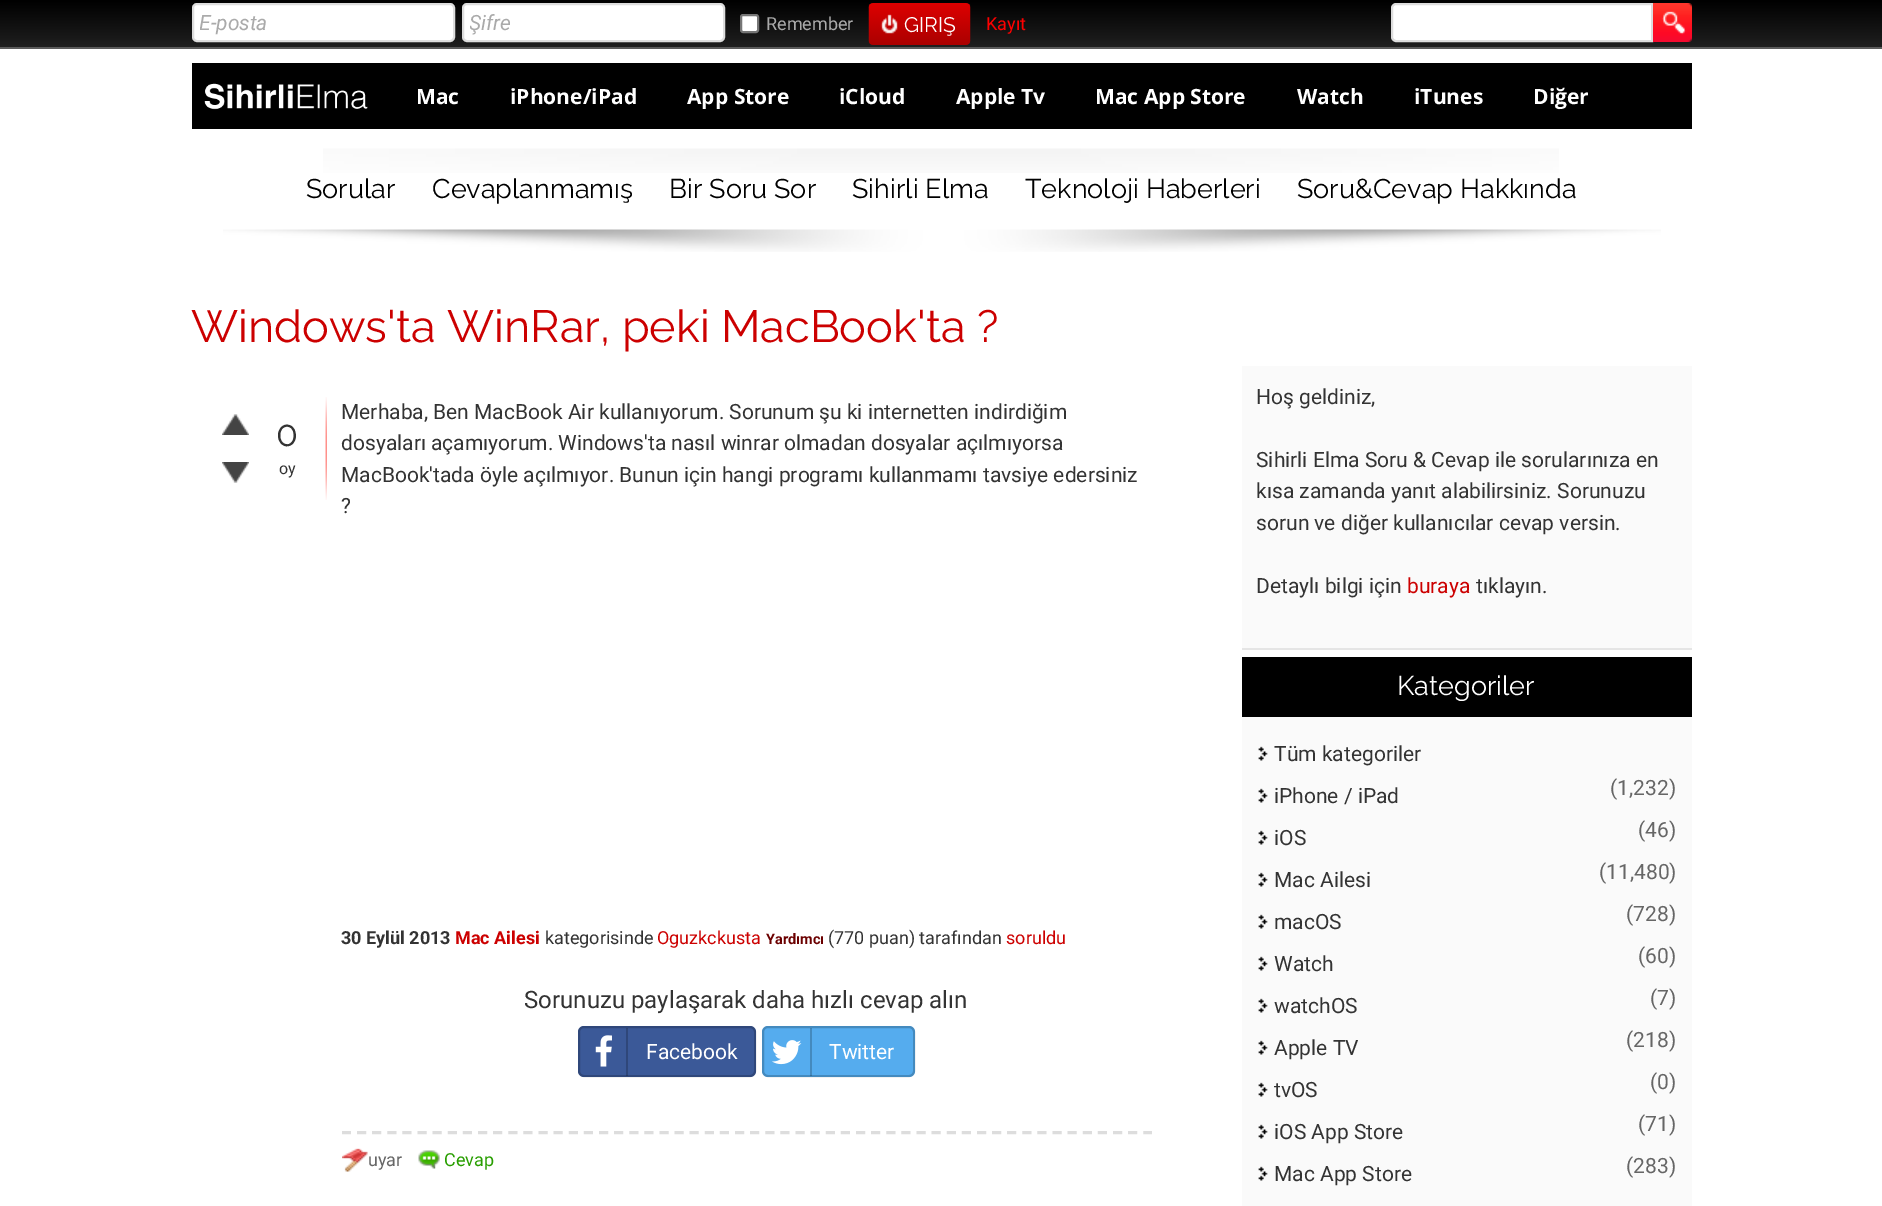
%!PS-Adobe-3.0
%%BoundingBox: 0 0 1882 1206
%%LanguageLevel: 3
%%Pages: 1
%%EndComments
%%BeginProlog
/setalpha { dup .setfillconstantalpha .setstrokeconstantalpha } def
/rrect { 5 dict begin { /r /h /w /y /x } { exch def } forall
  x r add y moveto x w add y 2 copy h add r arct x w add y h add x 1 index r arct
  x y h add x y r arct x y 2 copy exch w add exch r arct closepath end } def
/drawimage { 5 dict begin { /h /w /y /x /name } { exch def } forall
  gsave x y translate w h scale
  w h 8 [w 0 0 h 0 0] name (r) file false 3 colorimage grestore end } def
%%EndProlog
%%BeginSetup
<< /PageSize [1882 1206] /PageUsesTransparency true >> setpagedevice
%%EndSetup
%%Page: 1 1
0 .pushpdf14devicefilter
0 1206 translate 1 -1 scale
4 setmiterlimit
1 setgray
0 0 1882 1206 rectfill
gsave newpath 0 0 moveto 1882 0 lineto 1882 47 lineto 0 47 lineto closepath clip newpath
<< /ShadingType 2 /ColorSpace /DeviceRGB /Coords [941 0 941 47] /Extend [true true] /Function << /FunctionType 2 /Domain [0 1] /C0 [0 0 0] /C1 [0.122 0.122 0.122] /N 1 >> >> shfill grestore
0.357 setgray
0 47 1882 2 rectfill
1 setgray
193 4 261 37 4 rrect gsave fill grestore
0.867 setgray
2 setlinewidth
stroke
1 setgray
463 4 261 37 4 rrect gsave fill grestore
0.867 setgray
stroke
1 setgray
741 15 17 17 2 rrect gsave fill grestore
0.463 setgray
stroke
(images/1.raw) 868 3 103 42 drawimage
1 setgray
newpath 1396 4 moveto 1652 4 lineto 1652 41 lineto 1396 41 lineto 1394 41 1392 39 1392 37 curveto 1392 8 lineto 1392 6 1394 4 1396 4 curveto closepath gsave fill grestore
0.867 setgray
stroke
(images/2.raw) 1653 3 39 39 drawimage
0 setgray
192 63 1500 66 rectfill
(images/3.raw) 204 83 164 27 drawimage
(images/4.raw) 323 148 1236 25 drawimage
(images/5.raw) 223 229 1438 23 drawimage
(images/6.raw) 325 397 2 103 drawimage
(images/7.raw) 222 414 27 21 drawimage
(images/8.raw) 222 462 27 21 drawimage
0.231 0.349 0.596 setrgbcolor
578 1026 178 51 6 rrect fill
0.2 setalpha
0 setgray
579 1027 176 49 5 rrect stroke
626 1028 2 48 rectfill
1 setalpha
(images/9.raw) 595 1035 17 32 drawimage
0.333 0.675 0.933 setrgbcolor
762 1026 153 51 6 rrect fill
0.2 setalpha
0 setgray
763 1027 151 49 5 rrect stroke
810 1028 2 48 rectfill
1 setalpha
(images/10.raw) 772 1040 30 25 drawimage
0.867 setgray
3 setlinewidth
[9 6.12] 0 setdash
newpath 342 1132.5 moveto 1152 1132.5 lineto stroke
(images/11.raw) 342 1148 26 24 drawimage
(images/12.raw) 418 1150 22 19 drawimage
0.98 setgray
1242 366 450 282 rectfill
0.898 setgray
1242 648 450 2 rectfill
0.98 setgray
1242 717 450 489 rectfill
0 setgray
1242 657 450 60 rectfill
(images/13.raw) 1258 746 10 15 drawimage
(images/13.raw) 1258 788 10 15 drawimage
(images/13.raw) 1258 830 10 15 drawimage
(images/13.raw) 1258 872 10 15 drawimage
(images/13.raw) 1258 914 10 15 drawimage
(images/13.raw) 1258 956 10 15 drawimage
(images/13.raw) 1258 998 10 15 drawimage
(images/13.raw) 1258 1040 10 15 drawimage
(images/13.raw) 1258 1082 10 15 drawimage
(images/13.raw) 1258 1124 10 15 drawimage
(images/13.raw) 1258 1166 10 15 drawimage
gsave
200 11 247 24 rectclip
/Roboto-Italic [21 0 0 -21 0 0] selectfont
0.667 setgray
199 30 moveto (E-posta) show
grestore
gsave
470 11 247 24 rectclip
/Roboto-Italic [21 0 0 -21 0 0] selectfont
0.667 setgray
469 30 moveto (Şifre) show
grestore
/Roboto-Regular [18 0 0 -18 0 0] selectfont
0.667 setgray
766 30 moveto (Remember) show
/Raleway-Regular [21 0 0 -21 0 0] selectfont
1 setgray
904 32 moveto (GIRIŞ) show
/Roboto-Regular [18 0 0 -18 0 0] selectfont
1 0 0 setrgbcolor
986 30 moveto (Kayıt) show
/OpenSans-Bold [21 0 0 -21 0 0] selectfont
1 setgray
416 104 moveto (Mac) show
510 104 moveto (iPhone/iPad) show
687 104 moveto (App Store) show
839 104 moveto (iCloud) show
956 104 moveto (Apple Tv) show
1095 104 moveto (Mac App Store) show
1297 104 moveto (Watch) show
1414 104 moveto (iTunes) show
1533 104 moveto (Diğer) show
/Raleway-Regular [27 0 0 -27 0 0] selectfont
0 setgray
306 198 moveto (Sorular) show
432 198 moveto (Cevaplanmamış) show
669 198 moveto (Bir Soru Sor) show
852 198 moveto (Sihirli Elma) show
1025 198 moveto (Teknoloji Haberleri) show
1297 198 moveto (Soru&Cevap Hakkında) show
/Raleway-Regular [45 0 0 -45 0 0] selectfont
0.8 0 0 setrgbcolor
191 342 moveto (Windows'ta WinRar, peki MacBook'ta ?) show
/Raleway-Regular [36 0 0 -36 0 0] selectfont
0.2 setgray
276 446 moveto (0) show
/Roboto-Regular [16 0 0 -16 0 0] selectfont
279 474 moveto (oy) show
/Roboto-Regular [21 0 0 -21 0 0] selectfont
341 419 moveto (Merhaba, Ben MacBook Air kullanıyorum. Sorunum şu ki internetten indirdiğim) show
341 450 moveto (dosyaları açamıyorum. Windows'ta nasıl winrar olmadan dosyalar açılmıyorsa) show
341 482 moveto (MacBook'tada öyle açılmıyor. Bunun için hangi programı kullanmamı tavsiye edersiniz) show
341 513 moveto (?) show
/Roboto-Bold [18 0 0 -18 0 0] selectfont
341 944 moveto (30 Eylül 2013) show
0.8 0 0 setrgbcolor
455 944 moveto (Mac Ailesi) show
/Roboto-Regular [18 0 0 -18 0 0] selectfont
0.2 setgray
545 944 moveto (kategorisinde) show
0.8 0 0 setrgbcolor
657 944 moveto (Oguzkckusta) show
/Roboto-Bold [14.5 0 0 -14.5 0 0] selectfont
0.42 0 0 setrgbcolor
766 944 moveto (Yardımcı) show
/Roboto-Regular [18 0 0 -18 0 0] selectfont
0.2 setgray
828 944 moveto (\(770 puan\) tarafından) show
0.8 0 0 setrgbcolor
1006 944 moveto (soruldu) show
/Roboto-Regular [24 0 0 -24 0 0] selectfont
0.2 setgray
524 1008 moveto (Sorunuzu paylaşarak daha hızlı cevap alın) show
/Roboto-Regular [21 0 0 -21 0 0] selectfont
1 setgray
646 1059 moveto (Facebook) show
829 1059 moveto (Twitter) show
/Roboto-Regular [18 0 0 -18 0 0] selectfont
0.4 setgray
368 1166 moveto (uyar) show
0.157 0.62 0 setrgbcolor
444 1166 moveto (Cevap) show
/Roboto-Regular [21 0 0 -21 0 0] selectfont
0.2 setgray
1256 404 moveto (Hoş geldiniz,) show
1256 467 moveto (Sihirli Elma Soru & Cevap ile sorularınıza en) show
1256 498 moveto (kısa zamanda yanıt alabilirsiniz. Sorunuzu) show
1256 530 moveto (sorun ve diğer kullanıcılar cevap versin.) show
1256 593 moveto (Detaylı bilgi için) show
0.8 0 0 setrgbcolor
1407 593 moveto (buraya) show
0.2 setgray
1476 593 moveto (tıklayın.) show
/Raleway-Regular [27 0 0 -27 0 0] selectfont
1 setgray
1397 695 moveto (Kategoriler) show
/Roboto-Regular [21 0 0 -21 0 0] selectfont
0.2 setgray
1274 761 moveto (Tüm kategoriler) show
1274 803 moveto (iPhone / iPad) show
0.4 setgray
1610 795 moveto (\(1,232\)) show
0.2 setgray
1274 845 moveto (iOS) show
0.4 setgray
1638 837 moveto (\(46\)) show
0.2 setgray
1274 887 moveto (Mac Ailesi) show
0.4 setgray
1599 879 moveto (\(11,480\)) show
0.2 setgray
1274 929 moveto (macOS) show
0.4 setgray
1626 921 moveto (\(728\)) show
0.2 setgray
1274 971 moveto (Watch) show
0.4 setgray
1638 963 moveto (\(60\)) show
0.2 setgray
1274 1013 moveto (watchOS) show
0.4 setgray
1650 1005 moveto (\(7\)) show
0.2 setgray
1274 1055 moveto (Apple TV) show
0.4 setgray
1626 1047 moveto (\(218\)) show
0.2 setgray
1274 1097 moveto (tvOS) show
0.4 setgray
1650 1089 moveto (\(0\)) show
0.2 setgray
1274 1139 moveto (iOS App Store) show
0.4 setgray
1638 1131 moveto (\(71\)) show
0.2 setgray
1274 1181 moveto (Mac App Store) show
0.4 setgray
1626 1173 moveto (\(283\)) show
.poppdf14devicefilter showpage
%%EOF
